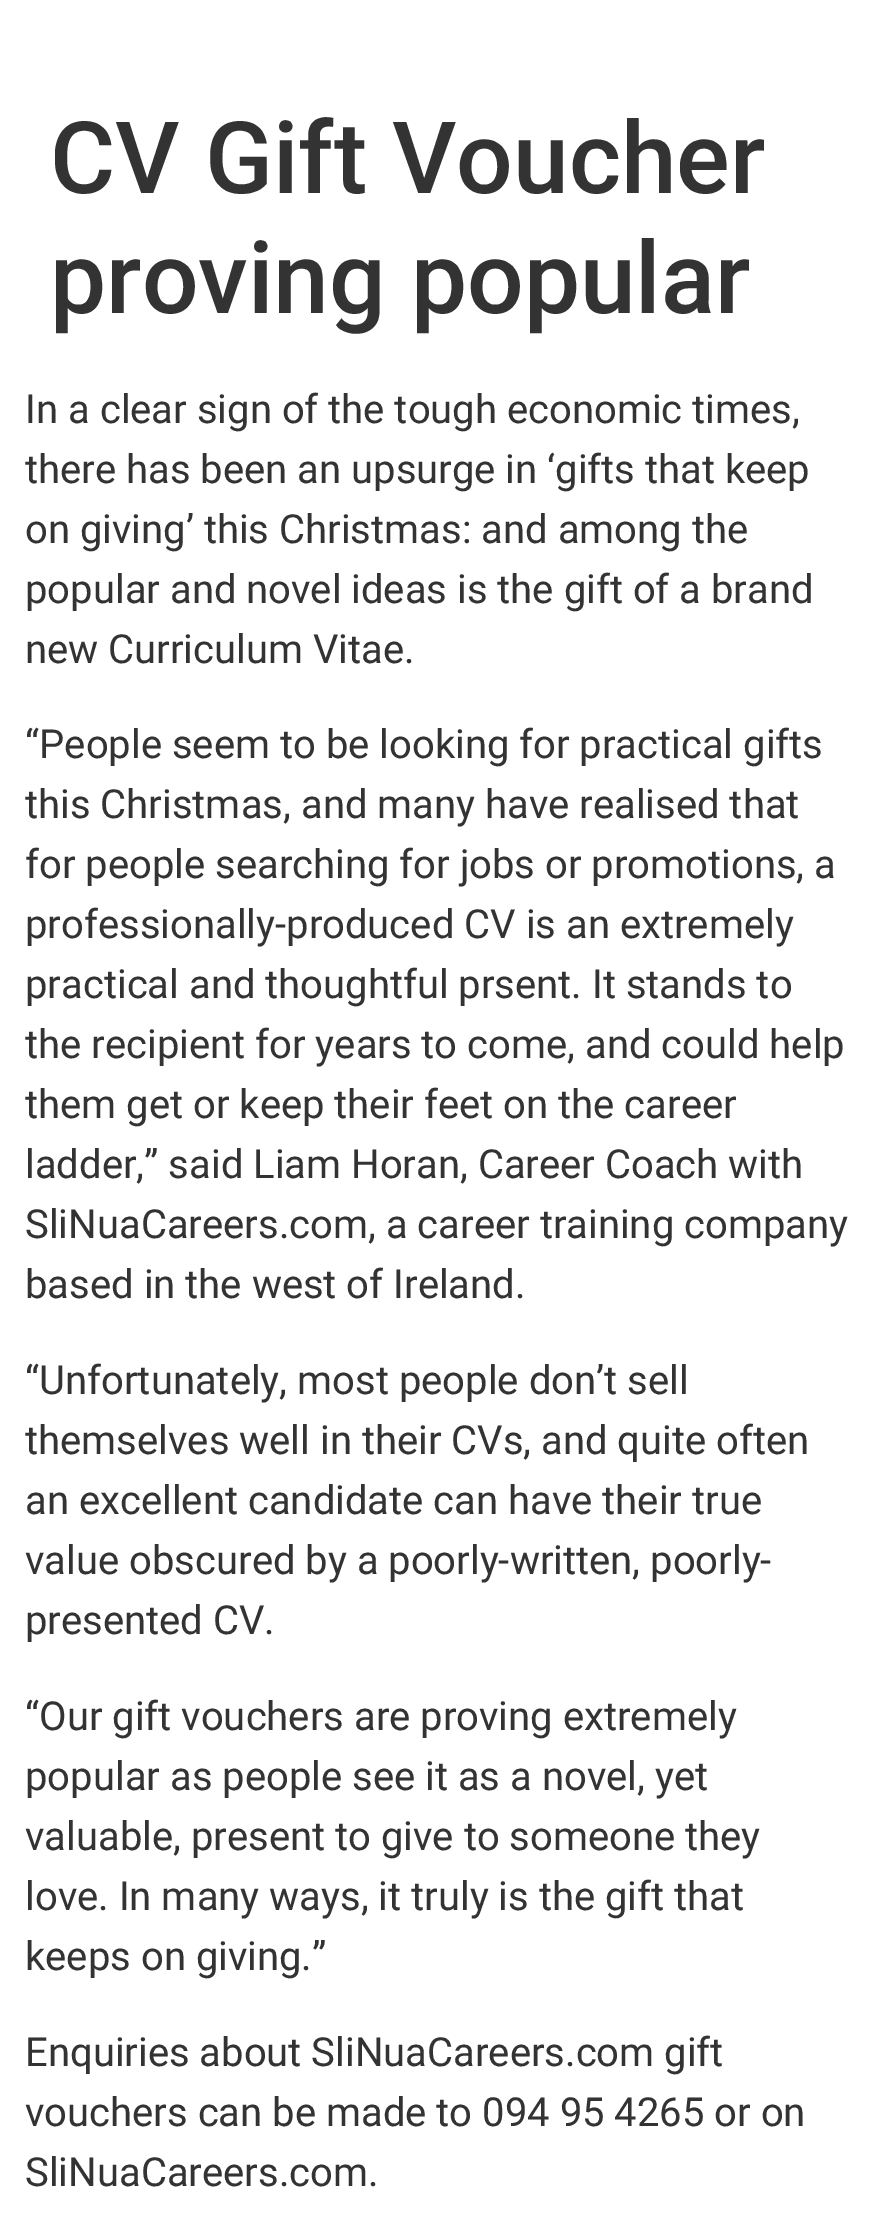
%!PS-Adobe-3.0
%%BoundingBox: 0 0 877 2227
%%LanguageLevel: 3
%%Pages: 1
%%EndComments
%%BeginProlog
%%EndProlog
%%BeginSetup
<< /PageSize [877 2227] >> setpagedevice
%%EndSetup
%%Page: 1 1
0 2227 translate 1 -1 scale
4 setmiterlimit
1 setgray
0 0 877 2227 rectfill
/Roboto-Medium [100 0 0 -100 0 0] selectfont
0.2 setgray
50 193 moveto (CV Gift Voucher) show
50 313 moveto (proving popular) show
/Roboto-Regular [40 0 0 -40 0 0] selectfont
25 423 moveto (In a clear sign of the tough economic times,) show
25 483 moveto (there has been an upsurge in ‘gifts that keep) show
25 543 moveto (on giving’ this Christmas: and among the) show
25 603 moveto (popular and novel ideas is the gift of a brand) show
25 663 moveto (new Curriculum Vitae.) show
25 758 moveto (“People seem to be looking for practical gifts) show
25 818 moveto (this Christmas, and many have realised that) show
25 878 moveto (for people searching for jobs or promotions, a) show
25 938 moveto (professionally-produced CV is an extremely) show
25 998 moveto (practical and thoughtful prsent. It stands to) show
25 1058 moveto (the recipient for years to come, and could help) show
25 1118 moveto (them get or keep their feet on the career) show
25 1178 moveto (ladder,” said Liam Horan, Career Coach with) show
25 1238 moveto (SliNuaCareers.com, a career training company) show
25 1298 moveto (based in the west of Ireland.) show
25 1394 moveto (“Unfortunately, most people don’t sell) show
25 1454 moveto (themselves well in their CVs, and quite often) show
25 1514 moveto (an excellent candidate can have their true) show
25 1574 moveto (value obscured by a poorly-written, poorly-) show
25 1634 moveto (presented CV.) show
25 1730 moveto (“Our gift vouchers are proving extremely) show
25 1790 moveto (popular as people see it as a novel, yet) show
25 1850 moveto (valuable, present to give to someone they) show
25 1910 moveto (love. In many ways, it truly is the gift that) show
25 1970 moveto (keeps on giving.”) show
25 2066 moveto (Enquiries about SliNuaCareers.com gift) show
25 2126 moveto (vouchers can be made to 094 95 4265 or on) show
25 2186 moveto (SliNuaCareers.com.) show
showpage
%%EOF
